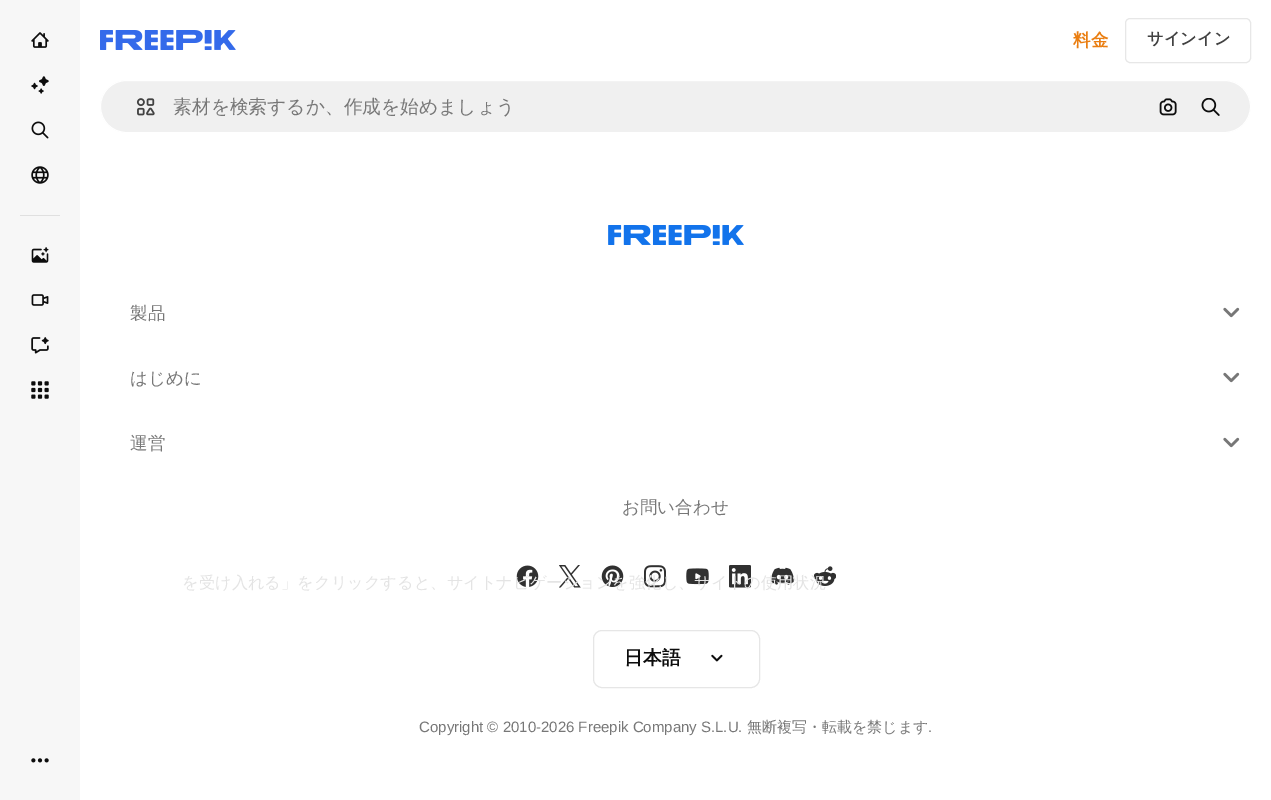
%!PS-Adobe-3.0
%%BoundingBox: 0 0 1271 800
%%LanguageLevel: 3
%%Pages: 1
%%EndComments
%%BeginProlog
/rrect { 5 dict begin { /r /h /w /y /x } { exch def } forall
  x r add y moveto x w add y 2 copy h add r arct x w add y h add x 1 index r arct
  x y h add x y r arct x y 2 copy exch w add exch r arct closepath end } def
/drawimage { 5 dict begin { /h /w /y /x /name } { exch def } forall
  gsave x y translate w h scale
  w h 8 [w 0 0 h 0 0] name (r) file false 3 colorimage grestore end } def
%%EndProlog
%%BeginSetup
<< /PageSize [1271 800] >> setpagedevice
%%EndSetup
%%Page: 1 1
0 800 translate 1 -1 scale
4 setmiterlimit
1 setgray
0 0 1271 800 rectfill
0.969 setgray
0 0 80 800 rectfill
(images/1.raw) 31 32 18 16 drawimage
(images/2.raw) 31 76 18 18 drawimage
(images/3.raw) 31 121 18 18 drawimage
(images/4.raw) 31 166 18 18 drawimage
0.878 setgray
20 215 40 1 rectfill
(images/5.raw) 31 247 18 16 drawimage
(images/6.raw) 31 294 18 12 drawimage
(images/7.raw) 31 337 18 17 drawimage
(images/8.raw) 31 381 18 18 drawimage
(images/9.raw) 31 758 18 5 drawimage
(images/10.raw) 100 30 136 20 drawimage
0.906 setgray
1125.5 18.5 125 44 4.5 rrect stroke
0.941 setgray
100.5 80.5 1150 52 26 rrect gsave fill grestore
1 setgray
stroke
(images/11.raw) 136 98 19 18 drawimage
(images/12.raw) 1159 98 18 18 drawimage
(images/13.raw) 1201 98 19 18 drawimage
(images/14.raw) 608 225 136 20 drawimage
(images/15.raw) 1223 307 17 11 drawimage
(images/15.raw) 1223 372 17 11 drawimage
(images/15.raw) 1223 437 17 11 drawimage
(images/16.raw) 516 565 23 22 drawimage
(images/17.raw) 559 565 22 23 drawimage
(images/18.raw) 601 565 23 22 drawimage
(images/19.raw) 644 565 22 23 drawimage
(images/20.raw) 686 568 23 17 drawimage
(images/21.raw) 729 565 22 23 drawimage
(images/22.raw) 771 567 23 18 drawimage
(images/23.raw) 814 566 22 20 drawimage
0.902 setgray
593.5 630.5 166 57 8.5 rrect stroke
(images/24.raw) 711 654 12 8 drawimage
/WenQuanYiZenHei-Bold [17.5 0 0 -17.5 0 0] selectfont
0.918 0.494 0.067 setrgbcolor
1073 46 moveto (料金) show
/WenQuanYiZenHei-Bold [16.25 0 0 -16.25 0 0] selectfont
0.259 setgray
1147 44 moveto (サインイン) show
/WenQuanYiZenHei-Medium [18.75 0 0 -18.75 0 0] selectfont
0.467 setgray
173 113 moveto (素材を検索するか、作成を始めましょう) show
/WenQuanYiZenHei-Medium [17.5 0 0 -17.5 0 0] selectfont
130 319 moveto (製品) show
130 384 moveto (はじめに) show
130 449 moveto (運営) show
622 513 moveto (お問い合わせ) show
/WenQuanYiZenHei-Bold [18.75 0 0 -18.75 0 0] selectfont
0.051 setgray
624 664 moveto (日本語) show
/LiberationSans-Regular [15 0 0 -15 0 0] selectfont
0.467 setgray
419 732 moveto (Copyright © 2010-2026 Freepik Company S.L.U.) show
/WenQuanYiZenHei-Medium [15 0 0 -15 0 0] selectfont
747 732 moveto (無断複写・転載を禁じます) show
/LiberationSans-Regular [15 0 0 -15 0 0] selectfont
928 732 moveto (.) show
/WenQuanYiZenHei-Medium [16.25 0 0 -16.25 0 0] selectfont
0.894 setgray
182 588 moveto (を受け入れる」をクリックすると、サイトナビゲーションを強化し、サイトの使用状況) show
showpage
%%EOF
